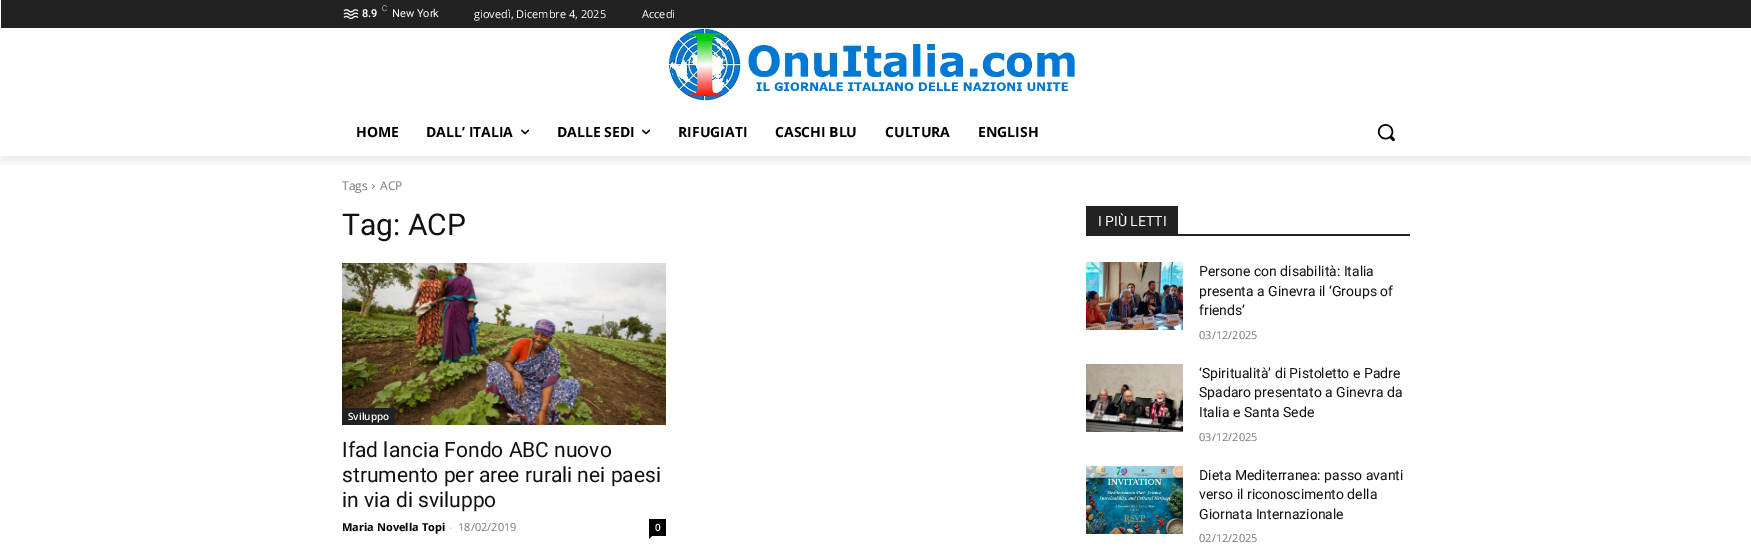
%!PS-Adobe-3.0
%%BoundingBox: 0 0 1751 551
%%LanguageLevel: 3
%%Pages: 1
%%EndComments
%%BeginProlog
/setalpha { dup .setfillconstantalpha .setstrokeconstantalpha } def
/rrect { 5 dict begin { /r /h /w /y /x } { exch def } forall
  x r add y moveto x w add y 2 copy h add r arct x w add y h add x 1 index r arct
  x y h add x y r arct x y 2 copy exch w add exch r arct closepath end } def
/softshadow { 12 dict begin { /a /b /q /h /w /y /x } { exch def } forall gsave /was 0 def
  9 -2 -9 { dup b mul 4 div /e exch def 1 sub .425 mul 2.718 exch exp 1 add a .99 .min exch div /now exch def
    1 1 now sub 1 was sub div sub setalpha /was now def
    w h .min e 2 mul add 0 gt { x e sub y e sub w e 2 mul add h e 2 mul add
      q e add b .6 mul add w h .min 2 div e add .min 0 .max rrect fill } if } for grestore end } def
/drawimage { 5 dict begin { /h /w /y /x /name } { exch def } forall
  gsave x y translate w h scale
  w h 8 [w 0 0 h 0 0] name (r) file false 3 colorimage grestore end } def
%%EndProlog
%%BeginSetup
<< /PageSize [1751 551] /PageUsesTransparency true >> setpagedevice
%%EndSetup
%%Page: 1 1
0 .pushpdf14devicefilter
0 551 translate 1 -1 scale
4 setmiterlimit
1 setgray
0 0 1751 551 rectfill
0.133 setgray
1 0 1750 28 rectfill
(images/1.raw) 343 9 16 11 drawimage
(images/2.raw) 668 28 410 73 drawimage
gsave
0 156 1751 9 rectclip
0 setgray
1 6 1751 156 0 4 0.08 softshadow
grestore
(images/3.raw) 521 129 9 6 drawimage
(images/3.raw) 642 129 9 6 drawimage
(images/4.raw) 1377 124 18 18 drawimage
(images/5.raw) 372 184 3 5 drawimage
(images/6.raw) 342 263 324 162 drawimage
342 408 53 17 rectfill
0 setgray
649 519 17 17 rectfill
newpath 649 536 moveto 652 536 lineto 649 539 lineto closepath fill
0.133 setgray
1086 234 324 2 rectfill
1086 206 92 28 rectfill
(images/7.raw) 1086 262 97 68 drawimage
(images/8.raw) 1086 364 97 68 drawimage
(images/9.raw) 1086 466 97 68 drawimage
/Roboto-SemiBold [11 0 0 -11 0 0] selectfont
1 setgray
362 17 moveto (8.9) show
/Roboto-Light [8 0 0 -8 0 0] selectfont
382 11 moveto (C) show
/Roboto-Regular [11 0 0 -11 0 0] selectfont
392 17 moveto (New York) show
/OpenSans-Regular [11 0 0 -11 0 0] selectfont
474 18 moveto (giovedì, Dicembre 4, 2025) show
642 18 moveto (Accedi) show
/OpenSans-Bold [14 0 0 -14 0 0] selectfont
0 setgray
356 137 moveto (HOME) show
426 137 moveto (DALL’ ITALIA) show
557 137 moveto (DALLE SEDI) show
678 137 moveto (RIFUGIATI) show
775 137 moveto (CASCHI BLU) show
885 137 moveto (CULTURA) show
978 137 moveto (ENGLISH) show
/OpenSans-Regular [12 0 0 -12 0 0] selectfont
0.455 setgray
342 190 moveto (Tags) show
380 190 moveto (ACP) show
/Roboto-Regular [30 0 0 -30 0 0] selectfont
0.067 setgray
342 235 moveto (Tag: ACP) show
/OpenSans-SemiBold [10 0 0 -10 0 0] selectfont
1 setgray
348 420 moveto (Sviluppo) show
/Roboto-Regular [21 0 0 -21 0 0] selectfont
0.067 setgray
342 457 moveto (Ifad lancia Fondo ABC nuovo) show
342 482 moveto (strumento per aree rurali nei paesi) show
342 507 moveto (in via di sviluppo) show
/OpenSans-Bold [11 0 0 -11 0 0] selectfont
0 setgray
342 531 moveto (Maria Novella Topi) show
/OpenSans-Regular [11 0 0 -11 0 0] selectfont
0.8 setgray
449 531 moveto (-) show
0.455 setgray
458 531 moveto (18/02/2019) show
/OpenSans-SemiBold [10 0 0 -10 0 0] selectfont
1 setgray
655 531 moveto (0) show
/Roboto-Regular [14 0 0 -14 0 0] selectfont
1098 226 moveto (I PIÙ LETTI) show
0.067 setgray
1199 276 moveto (Persone con disabilità: Italia) show
1199 296 moveto (presenta a Ginevra il ‘Groups of) show
1199 315 moveto (friends’) show
/OpenSans-Regular [11 0 0 -11 0 0] selectfont
0.455 setgray
1199 339 moveto (03/12/2025) show
/Roboto-Regular [14 0 0 -14 0 0] selectfont
0.067 setgray
1199 378 moveto (‘Spiritualità’ di Pistoletto e Padre) show
1199 397 moveto (Spadaro presentato a Ginevra da) show
1199 417 moveto (Italia e Santa Sede) show
/OpenSans-Regular [11 0 0 -11 0 0] selectfont
0.455 setgray
1199 441 moveto (03/12/2025) show
/Roboto-Regular [14 0 0 -14 0 0] selectfont
0.067 setgray
1199 480 moveto (Dieta Mediterranea: passo avanti) show
1199 499 moveto (verso il riconoscimento della) show
1199 519 moveto (Giornata Internazionale) show
/OpenSans-Regular [11 0 0 -11 0 0] selectfont
0.455 setgray
1199 542 moveto (02/12/2025) show
.poppdf14devicefilter showpage
%%EOF
